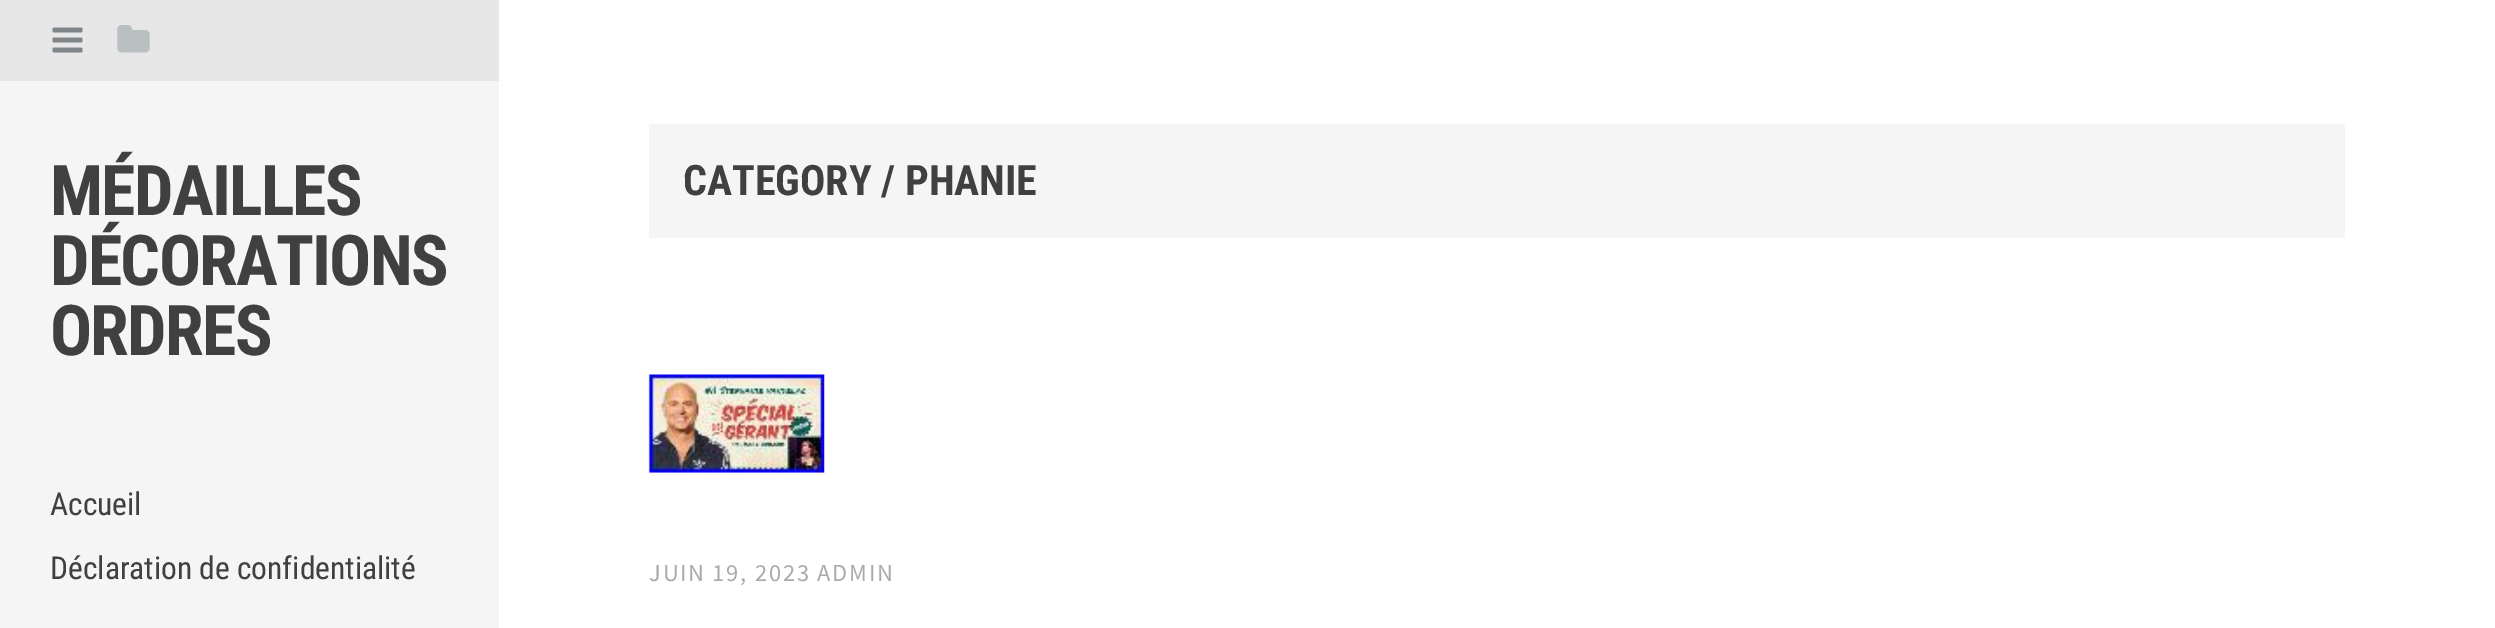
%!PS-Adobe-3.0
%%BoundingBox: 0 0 2495 628
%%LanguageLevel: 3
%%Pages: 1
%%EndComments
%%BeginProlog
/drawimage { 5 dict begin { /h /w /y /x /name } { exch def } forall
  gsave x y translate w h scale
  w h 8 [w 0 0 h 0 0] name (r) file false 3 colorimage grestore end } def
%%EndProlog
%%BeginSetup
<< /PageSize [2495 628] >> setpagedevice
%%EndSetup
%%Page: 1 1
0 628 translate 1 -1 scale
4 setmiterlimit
1 setgray
0 0 2495 628 rectfill
0.961 setgray
0 81 499 547 rectfill
0.906 setgray
0 0 499 81 rectfill
(images/1.raw) 52 27 31 26 drawimage
(images/2.raw) 117 25 33 28 drawimage
0.961 setgray
649 124 1696 114 rectfill
(images/3.raw) 648 374 177 99 drawimage
/RobotoCondensed-Bold [70 0 0 -70 0 0] selectfont
0.251 setgray
50 215 moveto -1.75 0 (MÉDAILLES) ashow
50 285 moveto -1.75 0 (DÉCORATIONS) ashow
50 355 moveto -1.75 0 (ORDRES) ashow
/RobotoCondensed-Regular [31.5 0 0 -31.5 0 0] selectfont
50 515 moveto (Accueil) show
50 579 moveto (Déclaration de confidentialité) show
/RobotoCondensed-Bold [42 0 0 -42 0 0] selectfont
683 195 moveto (CATEGORY / PHANIE) show
/SourceSansPro-Regular [24.5 0 0 -24.5 0 0] selectfont
0.667 setgray
649 581 moveto 1.75 0 (JUIN 19, 2023 ADMIN) ashow
showpage
%%EOF
